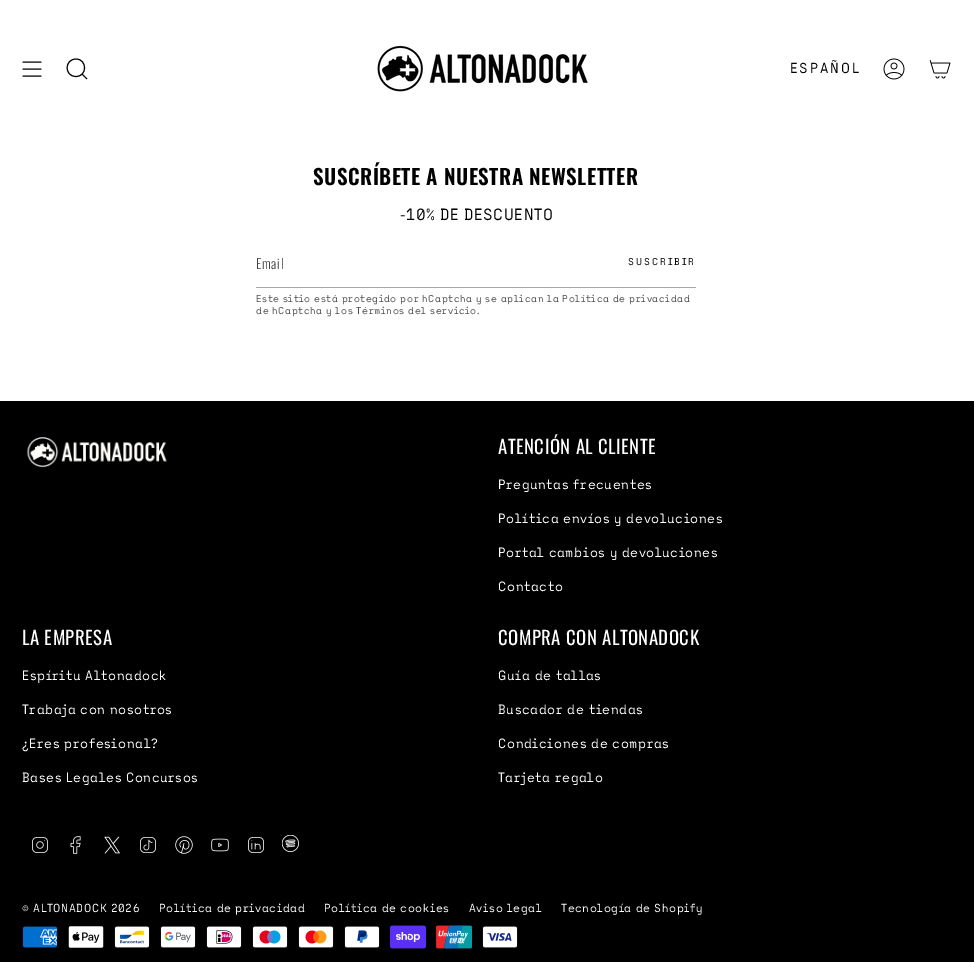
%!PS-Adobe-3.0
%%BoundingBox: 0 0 974 962
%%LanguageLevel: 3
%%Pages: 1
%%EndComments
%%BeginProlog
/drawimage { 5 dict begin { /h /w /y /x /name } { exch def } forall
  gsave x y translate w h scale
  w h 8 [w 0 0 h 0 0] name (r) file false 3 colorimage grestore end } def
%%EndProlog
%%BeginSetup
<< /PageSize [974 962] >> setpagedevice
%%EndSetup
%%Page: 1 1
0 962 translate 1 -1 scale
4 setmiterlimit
1 setgray
0 0 974 962 rectfill
0 setgray
1 setlinecap
1 setlinejoin
newpath 23 62 moveto 41 62 lineto 23 69 moveto 41 69 lineto 23 76 moveto 41 76 lineto stroke
0 setlinecap
0 setlinejoin
newpath 76 59 moveto 87.5 59 87.5 77 75.5 76.5 curveto 64 76 64.5 59 76 59 curveto closepath 82 74 moveto 87 79 lineto stroke
(images/1.raw) 377 45 211 47 drawimage
(images/2.raw) 883 58 22 22 drawimage
(images/3.raw) 929 60 22 19 drawimage
0.651 setgray
256 287 440 1 rectfill
0 setgray
0 401 974 561 rectfill
(images/4.raw) 27 437 140 31 drawimage
(images/5.raw) 32 837 16 16 drawimage
(images/6.raw) 70 836 11 18 drawimage
(images/7.raw) 104 836 16 18 drawimage
(images/8.raw) 140 837 16 16 drawimage
(images/9.raw) 175 836 18 18 drawimage
(images/10.raw) 211 838 18 14 drawimage
(images/11.raw) 248 837 16 16 drawimage
(images/12.raw) 282 835 17 17 drawimage
(images/13.raw) 22 926 36 22 drawimage
(images/14.raw) 68 926 36 22 drawimage
(images/15.raw) 114 926 36 22 drawimage
(images/16.raw) 160 926 36 22 drawimage
(images/17.raw) 206 926 36 22 drawimage
(images/18.raw) 252 926 36 22 drawimage
(images/19.raw) 298 926 36 22 drawimage
(images/20.raw) 344 926 36 22 drawimage
(images/21.raw) 390 925 36 24 drawimage
(images/22.raw) 436 925 36 24 drawimage
(images/23.raw) 482 926 36 22 drawimage
/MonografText-Regular [14.5 0 0 -14.5 0 0] selectfont
790 73 moveto 2 0 (ESPAÑOL) ashow
/Oswald-SemiBold [21 0 0 -21 0 0] selectfont
313 185 moveto 0.5 0 (SUSCRÍBETE A NUESTRA NEWSLETTER) ashow
/MonografText-Regular [16.25 0 0 -16.25 0 0] selectfont
400 220 moveto 0.68 0 (-10% DE DESCUENTO) ashow
/Oswald-Light [13.5 0 0 -13.5 0 0] selectfont
0.251 setgray
256 269 moveto 0.68 0 (Email) ashow
/MonografText-Regular [10 0 0 -10 0 0] selectfont
0 setgray
628 265 moveto 2 0 (SUSCRIBIR) ashow
/MonografText-Regular [10.1 0 0 -10.1 0 0] selectfont
0.302 setgray
256 302 moveto 0.68 0 (Este sitio está protegido por hCaptcha y se aplican la Política de privacidad) ashow
256 314 moveto 0.68 0 (de hCaptcha y los Términos del servicio.) ashow
/Oswald-Regular [18.75 0 0 -18.75 0 0] selectfont
1 setgray
498 454 moveto 0.5 0 (ATENCIÓN AL CLIENTE) ashow
/MonografText-Regular [13.5 0 0 -13.5 0 0] selectfont
498 489 moveto 0.68 0 (Preguntas frecuentes) ashow
498 523 moveto 0.68 0 (Política envíos y devoluciones) ashow
498 557 moveto 0.68 0 (Portal cambios y devoluciones) ashow
498 591 moveto 0.68 0 (Contacto) ashow
/Oswald-Regular [18.75 0 0 -18.75 0 0] selectfont
22 645 moveto 0.5 0 (LA EMPRESA) ashow
/MonografText-Regular [13.5 0 0 -13.5 0 0] selectfont
22 680 moveto 0.68 0 (Espíritu Altonadock) ashow
22 714 moveto 0.68 0 (Trabaja con nosotros) ashow
22 748 moveto 0.68 0 (¿Eres profesional?) ashow
22 782 moveto 0.68 0 (Bases Legales Concursos) ashow
/Oswald-Regular [18.75 0 0 -18.75 0 0] selectfont
498 645 moveto 0.5 0 (COMPRA CON ALTONADOCK) ashow
/MonografText-Regular [13.5 0 0 -13.5 0 0] selectfont
498 680 moveto 0.68 0 (Guía de tallas) ashow
498 714 moveto 0.68 0 (Buscador de tiendas) ashow
498 748 moveto 0.68 0 (Condiciones de compras) ashow
498 782 moveto 0.68 0 (Tarjeta regalo) ashow
/MonografText-Regular [11.75 0 0 -11.75 0 0] selectfont
22 912 moveto 0.68 0 (© ALTONADOCK 2026) ashow
159 912 moveto 0.68 0 (Política de privacidad) ashow
324 912 moveto 0.68 0 (Política de cookies) ashow
469 912 moveto 0.68 0 (Aviso legal) ashow
561 912 moveto 0.68 0 (Tecnología de Shopify) ashow
showpage
%%EOF
